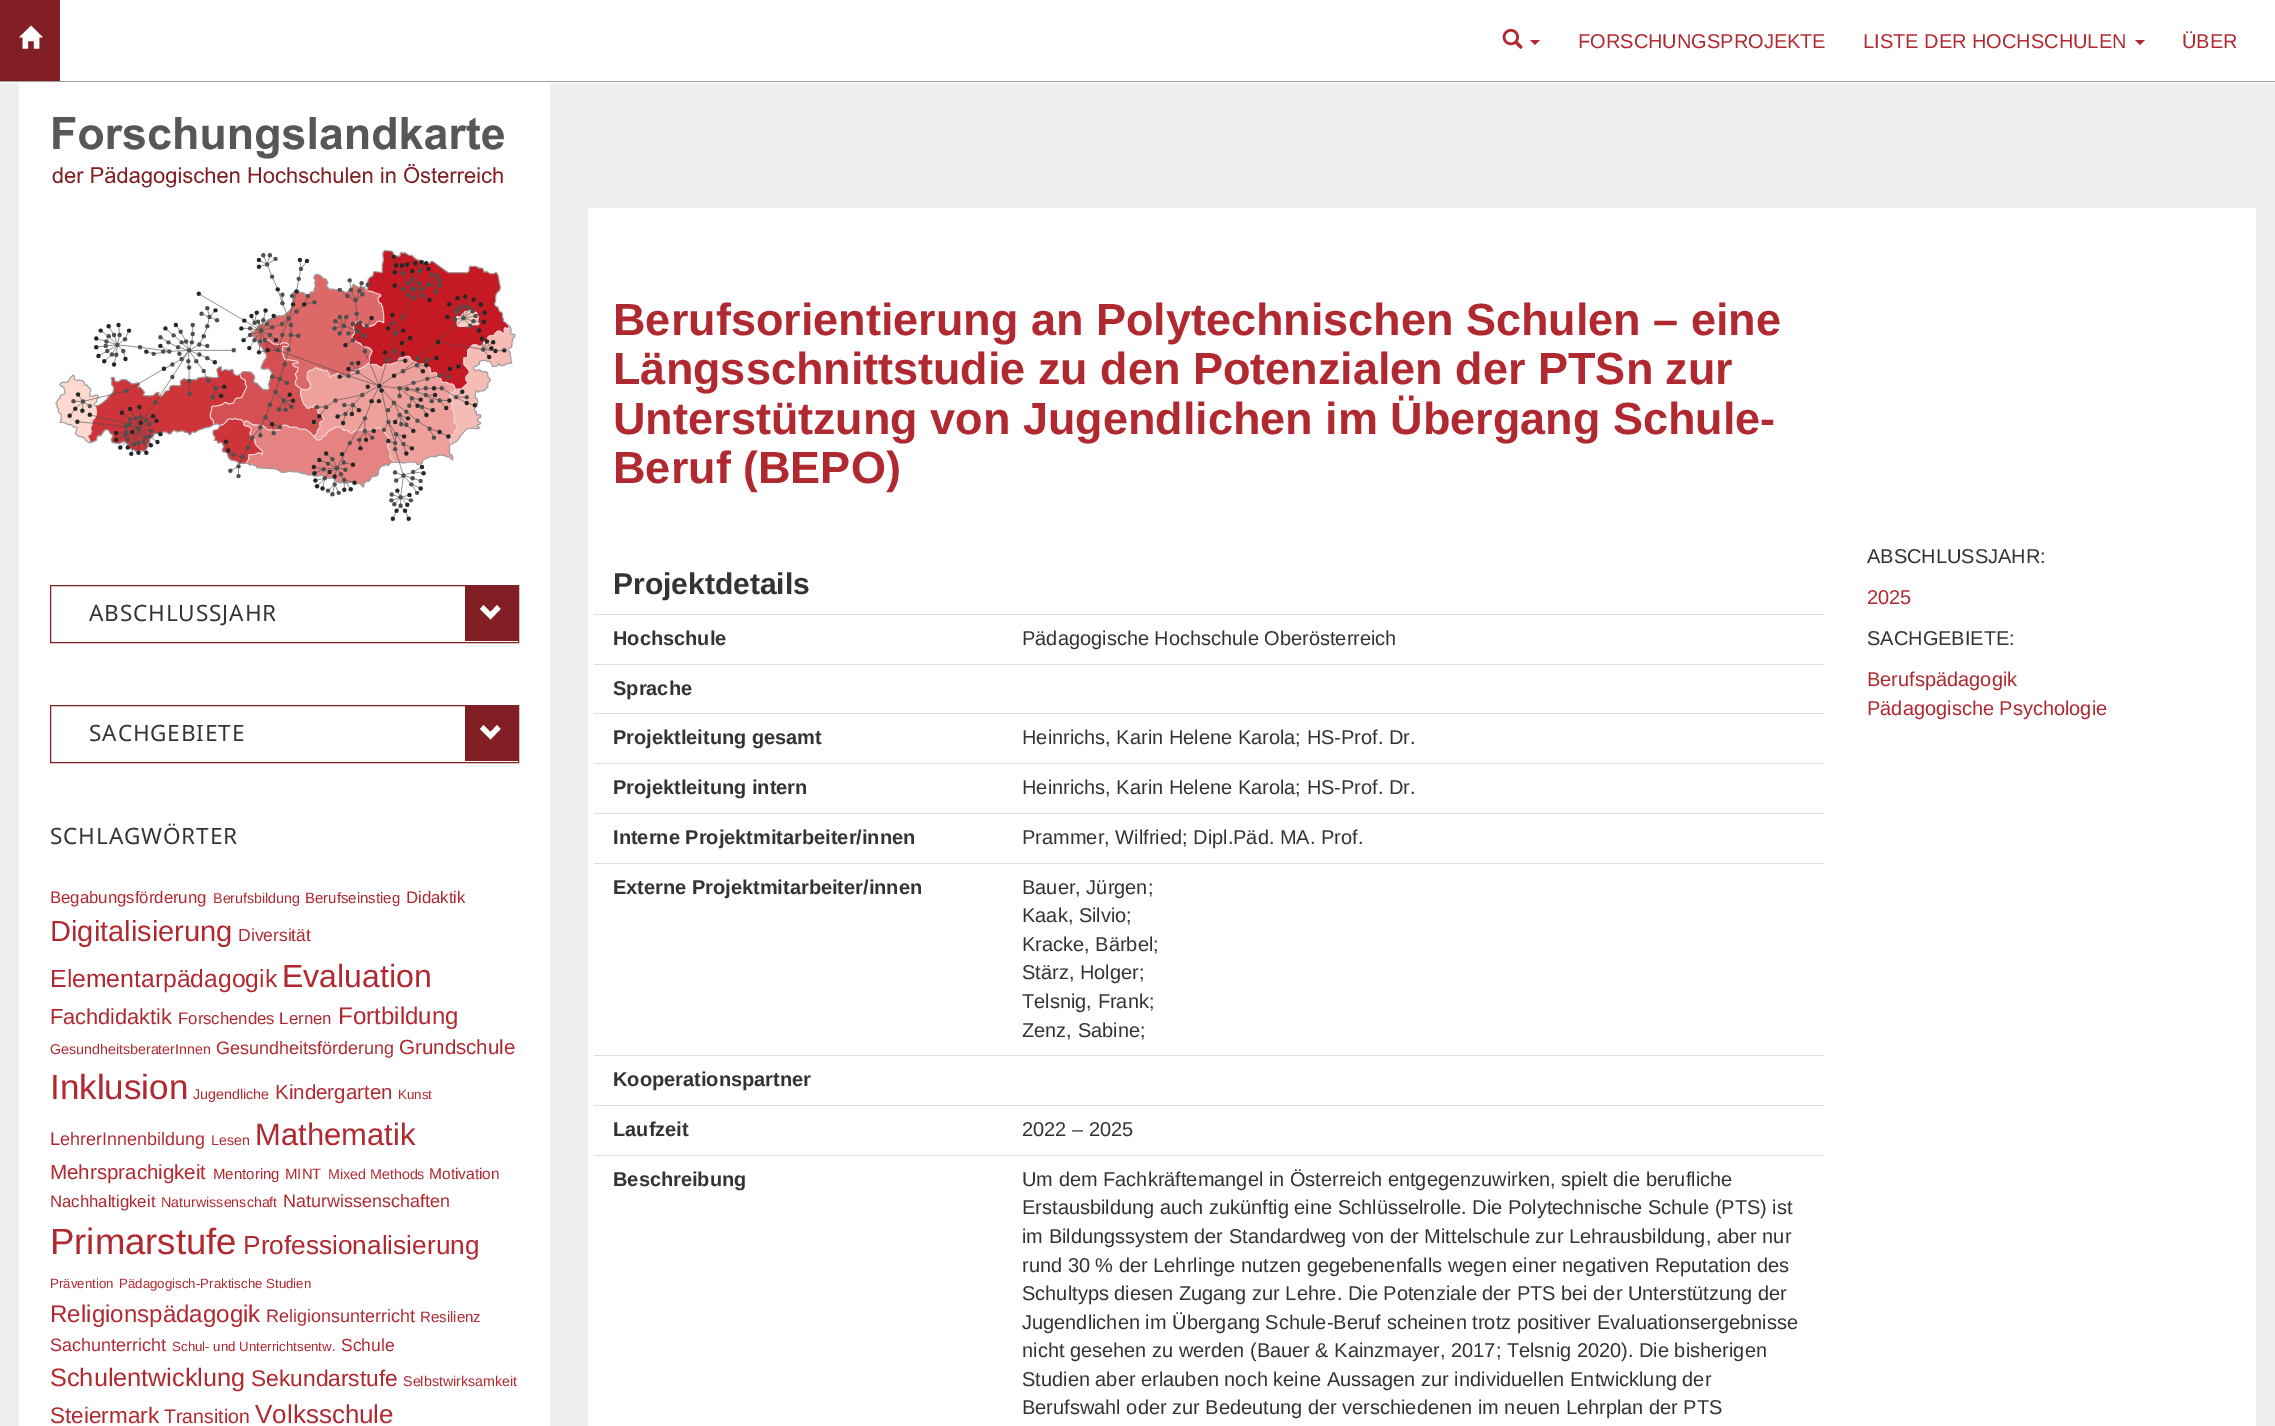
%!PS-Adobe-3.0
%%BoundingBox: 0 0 2275 1426
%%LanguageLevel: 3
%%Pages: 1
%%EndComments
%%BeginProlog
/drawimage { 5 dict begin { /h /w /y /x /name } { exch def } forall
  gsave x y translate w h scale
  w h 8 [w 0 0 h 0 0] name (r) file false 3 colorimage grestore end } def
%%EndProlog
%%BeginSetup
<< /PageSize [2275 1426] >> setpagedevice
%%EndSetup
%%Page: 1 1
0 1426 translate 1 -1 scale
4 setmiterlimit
0.937 setgray
0 0 2275 1426 rectfill
1 setgray
0 0 2275 83 rectfill
0.616 setgray
0 81 2275 1 rectfill
0.51 0.122 0.141 setrgbcolor
0 0 60 81 rectfill
(images/1.raw) 19 25 24 24 drawimage
(images/2.raw) 1502 28 21 21 drawimage
0.694 0.161 0.188 setrgbcolor
newpath 1530 40 moveto 1540 40 lineto 1535 45 lineto closepath fill
newpath 2135 40 moveto 2145 40 lineto 2140 45 lineto closepath fill
1 setgray
19 83 531 1343 rectfill
(images/3.raw) 52 117 464 404 drawimage
0.51 0.122 0.141 setrgbcolor
50.5 585.5 468 57 rectstroke
465 586 53 55 rectfill
1 setgray
newpath 500.5 609 moveto 490.5 619.5 lineto 480 609 lineto 483.5 605 lineto 490.5 612 lineto 497 605 lineto closepath fill
0.51 0.122 0.141 setrgbcolor
50.5 705.5 468 57 rectstroke
465 706 53 55 rectfill
1 setgray
newpath 500.5 729 moveto 490.5 739.5 lineto 480 729 lineto 483.5 725 lineto 490.5 732 lineto 497 725 lineto closepath fill
588 208 1668 1218 rectfill
0.867 setgray
594 614 1230 1 rectfill
594 664 1230 1 rectfill
594 713 1230 1 rectfill
594 763 1230 1 rectfill
594 813 1230 1 rectfill
594 863 1230 1 rectfill
594 1055 1230 1 rectfill
594 1105 1230 1 rectfill
594 1155 1230 1 rectfill
/LiberationSans-Regular [20 0 0 -20 0 0] selectfont
0.694 0.161 0.188 setrgbcolor
1578 48 moveto (FORSCHUNGSPROJEKTE) show
1863 48 moveto (LISTE DER HOCHSCHULEN) show
2182 48 moveto (ÜBER) show
/NotoSans-Regular [22.5 0 0 -22.5 0 0] selectfont
0.2 setgray
89 621 moveto 0.9 0 (ABSCHLUSSJAHR) ashow
89 741 moveto 0.9 0 (SACHGEBIETE) ashow
50 844 moveto 0.9 0 (SCHLAGWÖRTER) ashow
/LiberationSans-Regular [16.75 0 0 -16.75 0 0] selectfont
0.694 0.161 0.188 setrgbcolor
50 903 moveto (Begabungsförderung) show
/LiberationSans-Regular [14.25 0 0 -14.25 0 0] selectfont
213 903 moveto (Berufsbildung) show
/LiberationSans-Regular [15 0 0 -15 0 0] selectfont
305 903 moveto (Berufseinstieg) show
/LiberationSans-Regular [16.75 0 0 -16.75 0 0] selectfont
406 903 moveto (Didaktik) show
/LiberationSans-Regular [29 0 0 -29 0 0] selectfont
50 941 moveto (Digitalisierung) show
/LiberationSans-Regular [17.5 0 0 -17.5 0 0] selectfont
238 941 moveto (Diversität) show
/LiberationSans-Regular [24.75 0 0 -24.75 0 0] selectfont
50 987 moveto (Elementarpädagogik) show
/LiberationSans-Regular [32 0 0 -32 0 0] selectfont
282 987 moveto (Evaluation) show
/LiberationSans-Regular [21.75 0 0 -21.75 0 0] selectfont
50 1024 moveto (Fachdidaktik) show
/LiberationSans-Regular [16.75 0 0 -16.75 0 0] selectfont
178 1024 moveto (Forschendes Lernen) show
/LiberationSans-Regular [24.1 0 0 -24.1 0 0] selectfont
338 1024 moveto (Fortbildung) show
/LiberationSans-Regular [14.25 0 0 -14.25 0 0] selectfont
50 1054 moveto (GesundheitsberaterInnen) show
/LiberationSans-Regular [18 0 0 -18 0 0] selectfont
216 1054 moveto (Gesundheitsförderung) show
/LiberationSans-Regular [20.5 0 0 -20.5 0 0] selectfont
399 1054 moveto (Grundschule) show
/LiberationSans-Regular [35 0 0 -35 0 0] selectfont
50 1099 moveto (Inklusion) show
/LiberationSans-Regular [14.25 0 0 -14.25 0 0] selectfont
193 1099 moveto (Jugendliche) show
/LiberationSans-Regular [20.5 0 0 -20.5 0 0] selectfont
275 1099 moveto (Kindergarten) show
/LiberationSans-Regular [13.3 0 0 -13.3 0 0] selectfont
398 1099 moveto (Kunst) show
/LiberationSans-Regular [18 0 0 -18 0 0] selectfont
50 1145 moveto (LehrerInnenbildung) show
/LiberationSans-Regular [14.25 0 0 -14.25 0 0] selectfont
211 1145 moveto (Lesen) show
/LiberationSans-Regular [31 0 0 -31 0 0] selectfont
255 1145 moveto (Mathematik) show
/LiberationSans-Regular [20.5 0 0 -20.5 0 0] selectfont
50 1179 moveto (Mehrsprachigkeit) show
/LiberationSans-Regular [15 0 0 -15 0 0] selectfont
213 1179 moveto (Mentoring) show
285 1179 moveto (MINT) show
/LiberationSans-Regular [14.25 0 0 -14.25 0 0] selectfont
328 1179 moveto (Mixed Methods) show
/LiberationSans-Regular [15.5 0 0 -15.5 0 0] selectfont
429 1179 moveto (Motivation) show
/LiberationSans-Regular [16.75 0 0 -16.75 0 0] selectfont
50 1207 moveto (Nachhaltigkeit) show
/LiberationSans-Regular [14.25 0 0 -14.25 0 0] selectfont
161 1207 moveto (Naturwissenschaft) show
/LiberationSans-Regular [18 0 0 -18 0 0] selectfont
283 1207 moveto (Naturwissenschaften) show
/LiberationSans-Regular [36.5 0 0 -36.5 0 0] selectfont
50 1254 moveto (Primarstufe) show
/LiberationSans-Regular [26.25 0 0 -26.25 0 0] selectfont
243 1254 moveto (Professionalisierung) show
/LiberationSans-Regular [13.3 0 0 -13.3 0 0] selectfont
50 1288 moveto (Prävention) show
119 1288 moveto (Pädagogisch-Praktische Studien) show
/LiberationSans-Regular [24.1 0 0 -24.1 0 0] selectfont
50 1322 moveto (Religionspädagogik) show
/LiberationSans-Regular [18 0 0 -18 0 0] selectfont
266 1322 moveto (Religionsunterricht) show
/LiberationSans-Regular [15 0 0 -15 0 0] selectfont
420 1322 moveto (Resilienz) show
/LiberationSans-Regular [18 0 0 -18 0 0] selectfont
50 1351 moveto (Sachunterricht) show
/LiberationSans-Regular [13.3 0 0 -13.3 0 0] selectfont
172 1351 moveto (Schul- und Unterrichtsentw.) show
/LiberationSans-Regular [17.5 0 0 -17.5 0 0] selectfont
341 1351 moveto (Schule) show
/LiberationSans-Regular [25.25 0 0 -25.25 0 0] selectfont
50 1386 moveto (Schulentwicklung) show
/LiberationSans-Regular [22.75 0 0 -22.75 0 0] selectfont
251 1386 moveto (Sekundarstufe) show
/LiberationSans-Regular [14.25 0 0 -14.25 0 0] selectfont
403 1386 moveto (Selbstwirksamkeit) show
/LiberationSans-Regular [22.5 0 0 -22.5 0 0] selectfont
50 1423 moveto (Steiermark) show
/LiberationSans-Regular [19.5 0 0 -19.5 0 0] selectfont
164 1423 moveto (Transition) show
/LiberationSans-Regular [26 0 0 -26 0 0] selectfont
255 1423 moveto (Volksschule) show
/LiberationSans-Bold [45 0 0 -45 0 0] selectfont
613 335 moveto (Berufsorientierung an Polytechnischen Schulen – eine) show
613 384 moveto (Längsschnittstudie zu den Potenzialen der PTSn zur) show
613 434 moveto (Unterstützung von Jugendlichen im Übergang Schule-) show
613 483 moveto (Beruf \(BEPO\)) show
/LiberationSans-Bold [30 0 0 -30 0 0] selectfont
0.2 setgray
613 594 moveto (Projektdetails) show
/LiberationSans-Bold [20 0 0 -20 0 0] selectfont
613 645 moveto (Hochschule) show
/LiberationSans-Regular [20 0 0 -20 0 0] selectfont
1022 645 moveto (Pädagogische Hochschule Oberösterreich) show
/LiberationSans-Bold [20 0 0 -20 0 0] selectfont
613 695 moveto (Sprache) show
613 744 moveto (Projektleitung gesamt) show
/LiberationSans-Regular [20 0 0 -20 0 0] selectfont
1022 744 moveto (Heinrichs, Karin Helene Karola; HS-Prof. Dr.) show
/LiberationSans-Bold [20 0 0 -20 0 0] selectfont
613 794 moveto (Projektleitung intern) show
/LiberationSans-Regular [20 0 0 -20 0 0] selectfont
1022 794 moveto (Heinrichs, Karin Helene Karola; HS-Prof. Dr.) show
/LiberationSans-Bold [20 0 0 -20 0 0] selectfont
613 844 moveto (Interne Projektmitarbeiter/innen) show
/LiberationSans-Regular [20 0 0 -20 0 0] selectfont
1022 844 moveto (Prammer, Wilfried; Dipl.Päd. MA. Prof.) show
/LiberationSans-Bold [20 0 0 -20 0 0] selectfont
613 894 moveto (Externe Projektmitarbeiter/innen) show
/LiberationSans-Regular [20 0 0 -20 0 0] selectfont
1022 894 moveto (Bauer, Jürgen;) show
1022 922 moveto (Kaak, Silvio;) show
1022 951 moveto (Kracke, Bärbel;) show
1022 979 moveto (Stärz, Holger;) show
1022 1008 moveto (Telsnig, Frank;) show
1022 1037 moveto (Zenz, Sabine;) show
/LiberationSans-Bold [20 0 0 -20 0 0] selectfont
613 1086 moveto (Kooperationspartner) show
613 1136 moveto (Laufzeit) show
/LiberationSans-Regular [20 0 0 -20 0 0] selectfont
1022 1136 moveto (2022 – 2025) show
/LiberationSans-Bold [20 0 0 -20 0 0] selectfont
613 1186 moveto (Beschreibung) show
/LiberationSans-Regular [20 0 0 -20 0 0] selectfont
1022 1186 moveto (Um dem Fachkräftemangel in Österreich entgegenzuwirken, spielt die berufliche) show
1022 1214 moveto (Erstausbildung auch zukünftig eine Schlüsselrolle. Die Polytechnische Schule \(PTS\) ist) show
1022 1243 moveto (im Bildungssystem der Standardweg von der Mittelschule zur Lehrausbildung, aber nur) show
1022 1272 moveto (rund 30 % der Lehrlinge nutzen gegebenenfalls wegen einer negativen Reputation des) show
1022 1300 moveto (Schultyps diesen Zugang zur Lehre. Die Potenziale der PTS bei der Unterstützung der) show
1022 1329 moveto (Jugendlichen im Übergang Schule-Beruf scheinen trotz positiver Evaluationsergebnisse) show
1022 1357 moveto (nicht gesehen zu werden \(Bauer & Kainzmayer, 2017; Telsnig 2020\). Die bisherigen) show
1022 1386 moveto (Studien aber erlauben noch keine Aussagen zur individuellen Entwicklung der) show
1022 1414 moveto (Berufswahl oder zur Bedeutung der verschiedenen im neuen Lehrplan der PTS) show
1867 563 moveto (ABSCHLUSSJAHR:) show
0.694 0.161 0.188 setrgbcolor
1867 604 moveto (2025) show
0.2 setgray
1867 645 moveto (SACHGEBIETE:) show
0.694 0.161 0.188 setrgbcolor
1867 686 moveto (Berufspädagogik) show
1867 715 moveto (Pädagogische Psychologie) show
showpage
%%EOF
